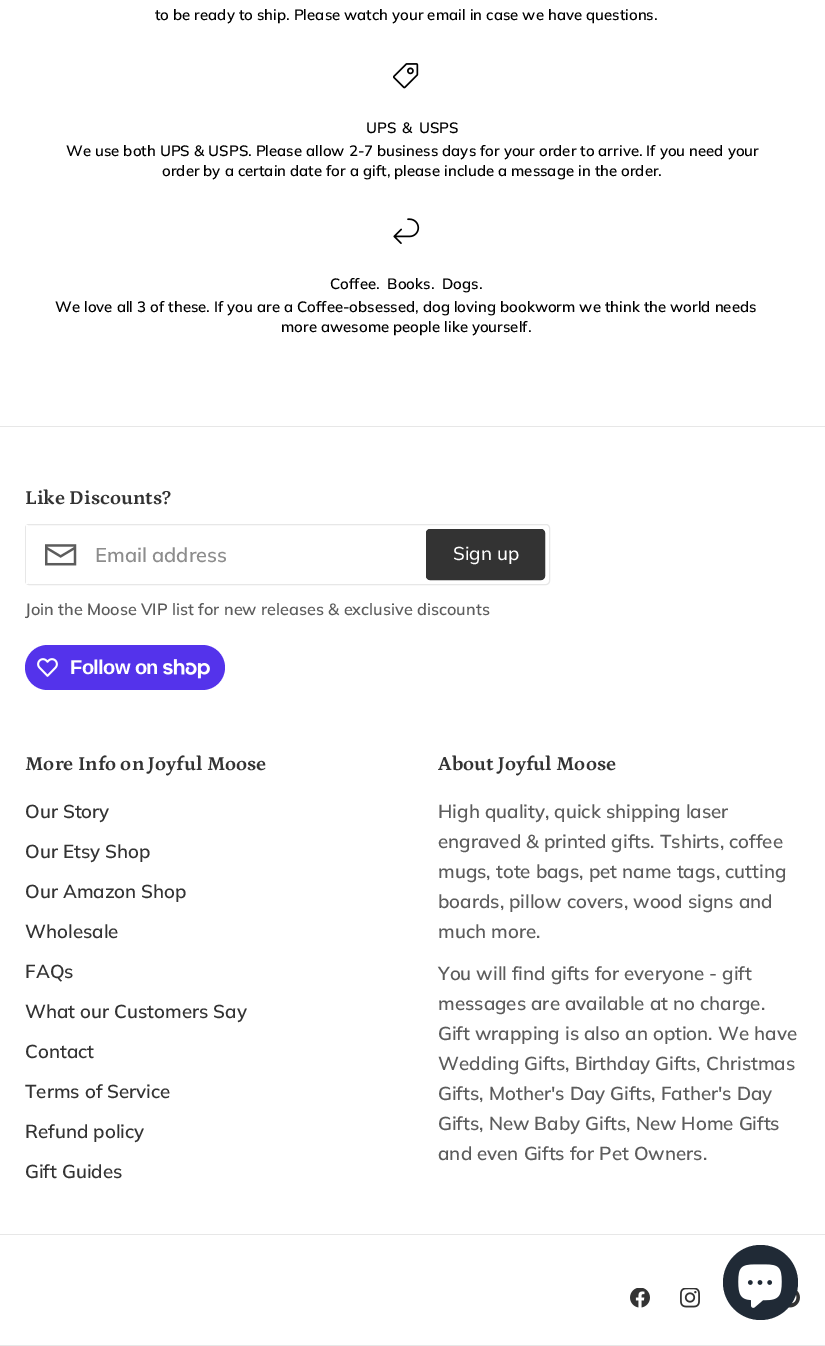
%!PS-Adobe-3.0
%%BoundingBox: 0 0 825 1346
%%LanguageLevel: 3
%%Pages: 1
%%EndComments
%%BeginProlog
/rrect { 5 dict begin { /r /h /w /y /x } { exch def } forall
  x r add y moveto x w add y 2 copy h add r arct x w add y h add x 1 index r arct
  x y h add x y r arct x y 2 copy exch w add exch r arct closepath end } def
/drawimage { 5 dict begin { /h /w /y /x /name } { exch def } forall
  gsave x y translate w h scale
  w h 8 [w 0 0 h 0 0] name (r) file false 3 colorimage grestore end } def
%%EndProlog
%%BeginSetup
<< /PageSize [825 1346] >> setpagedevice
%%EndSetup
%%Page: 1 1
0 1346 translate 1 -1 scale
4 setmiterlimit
1 setgray
0 0 825 1346 rectfill
(images/1.raw) 393 63 26 26 drawimage
(images/2.raw) 393 218 27 26 drawimage
0.906 setgray
0 426 825 1 rectfill
0 1234 825 1 rectfill
25.5 524.5 524 60 3.5 rrect stroke
(images/3.raw) 45 544 32 22 drawimage
1 setgray
26 525 2 59 rectfill
0.2 setgray
426.5 529.5 118 50 3.5 rrect gsave fill grestore
stroke
0.329 0.2 0.922 setrgbcolor
25 645 200 45 22.5 rrect fill
(images/4.raw) 37 658 21 19 drawimage
(images/5.raw) 163 659 47 20 drawimage
(images/6.raw) 630 1288 20 20 drawimage
(images/7.raw) 680 1288 20 20 drawimage
(images/8.raw) 788 1290 12 18 drawimage
0.125 0.165 0.212 setrgbcolor
newpath 760.5 1282.5 37.5 0 360 arc closepath fill
(images/9.raw) 738 1264 44 44 drawimage
0.906 setgray
0 1345 825 1 rectfill
/Muli-SemiBold [15 0 0 -15 0 0] selectfont
0 setgray
155 20 moveto (to be ready to ship. Please watch your email in case we have questions.) show
366 133 moveto 2 0 32 (UPS & USPS) widthshow
66 156 moveto (We use both UPS & USPS. Please allow 2-7 business days for your order to arrive. If you need your) show
162 176 moveto (order by a certain date for a gift, please include a message in the order.) show
330 289 moveto 4 0 32 (Coffee. Books. Dogs.) widthshow
55 312 moveto (We love all 3 of these. If you are a Coffee-obsessed, dog loving bookworm we think the world needs) show
281 332 moveto (more awesome people like yourself.) show
/Petrona-Bold [20 0 0 -20 0 0] selectfont
0.2 setgray
25 504 moveto (Like Discounts?) show
/Muli-SemiBold [20 0 0 -20 0 0] selectfont
0.553 setgray
95 562 moveto (Email address) show
/Muli-Medium [18.75 0 0 -18.75 0 0] selectfont
1 setgray
453 560 moveto (Sign up) show
/Muli-SemiBold [16.25 0 0 -16.25 0 0] selectfont
0.361 setgray
25 615 moveto (Join the Moose VIP list for new releases & exclusive discounts) show
/LiberationSans-Bold [20 0 0 -20 0 0] selectfont
1 setgray
70 674 moveto -0.6 0 (Follow on) ashow
/Petrona-Bold [20 0 0 -20 0 0] selectfont
0.2 setgray
25 770 moveto (More Info on Joyful Moose) show
/Muli-SemiBold [18.75 0 0 -18.75 0 0] selectfont
25 818 moveto (Our Story) show
25 858 moveto (Our Etsy Shop) show
25 898 moveto (Our Amazon Shop) show
25 938 moveto (Wholesale) show
25 978 moveto (FAQs) show
25 1018 moveto (What our Customers Say) show
25 1058 moveto (Contact) show
25 1098 moveto (Terms of Service) show
25 1138 moveto (Refund policy) show
25 1178 moveto (Gift Guides) show
/Petrona-Bold [20 0 0 -20 0 0] selectfont
438 770 moveto (About Joyful Moose) show
/Muli-SemiBold [18.75 0 0 -18.75 0 0] selectfont
0.361 setgray
438 818 moveto (High quality, quick shipping laser) show
438 848 moveto (engraved & printed gifts. Tshirts, coffee) show
438 878 moveto (mugs, tote bags, pet name tags, cutting) show
438 908 moveto (boards, pillow covers, wood signs and) show
438 938 moveto (much more.) show
438 980 moveto (You will find gifts for everyone - gift) show
438 1010 moveto (messages are available at no charge.) show
438 1040 moveto (Gift wrapping is also an option. We have) show
438 1070 moveto (Wedding Gifts, Birthday Gifts, Christmas) show
438 1100 moveto (Gifts, Mother's Day Gifts, Father's Day) show
438 1130 moveto (Gifts, New Baby Gifts, New Home Gifts) show
438 1160 moveto (and even Gifts for Pet Owners.) show
showpage
%%EOF
